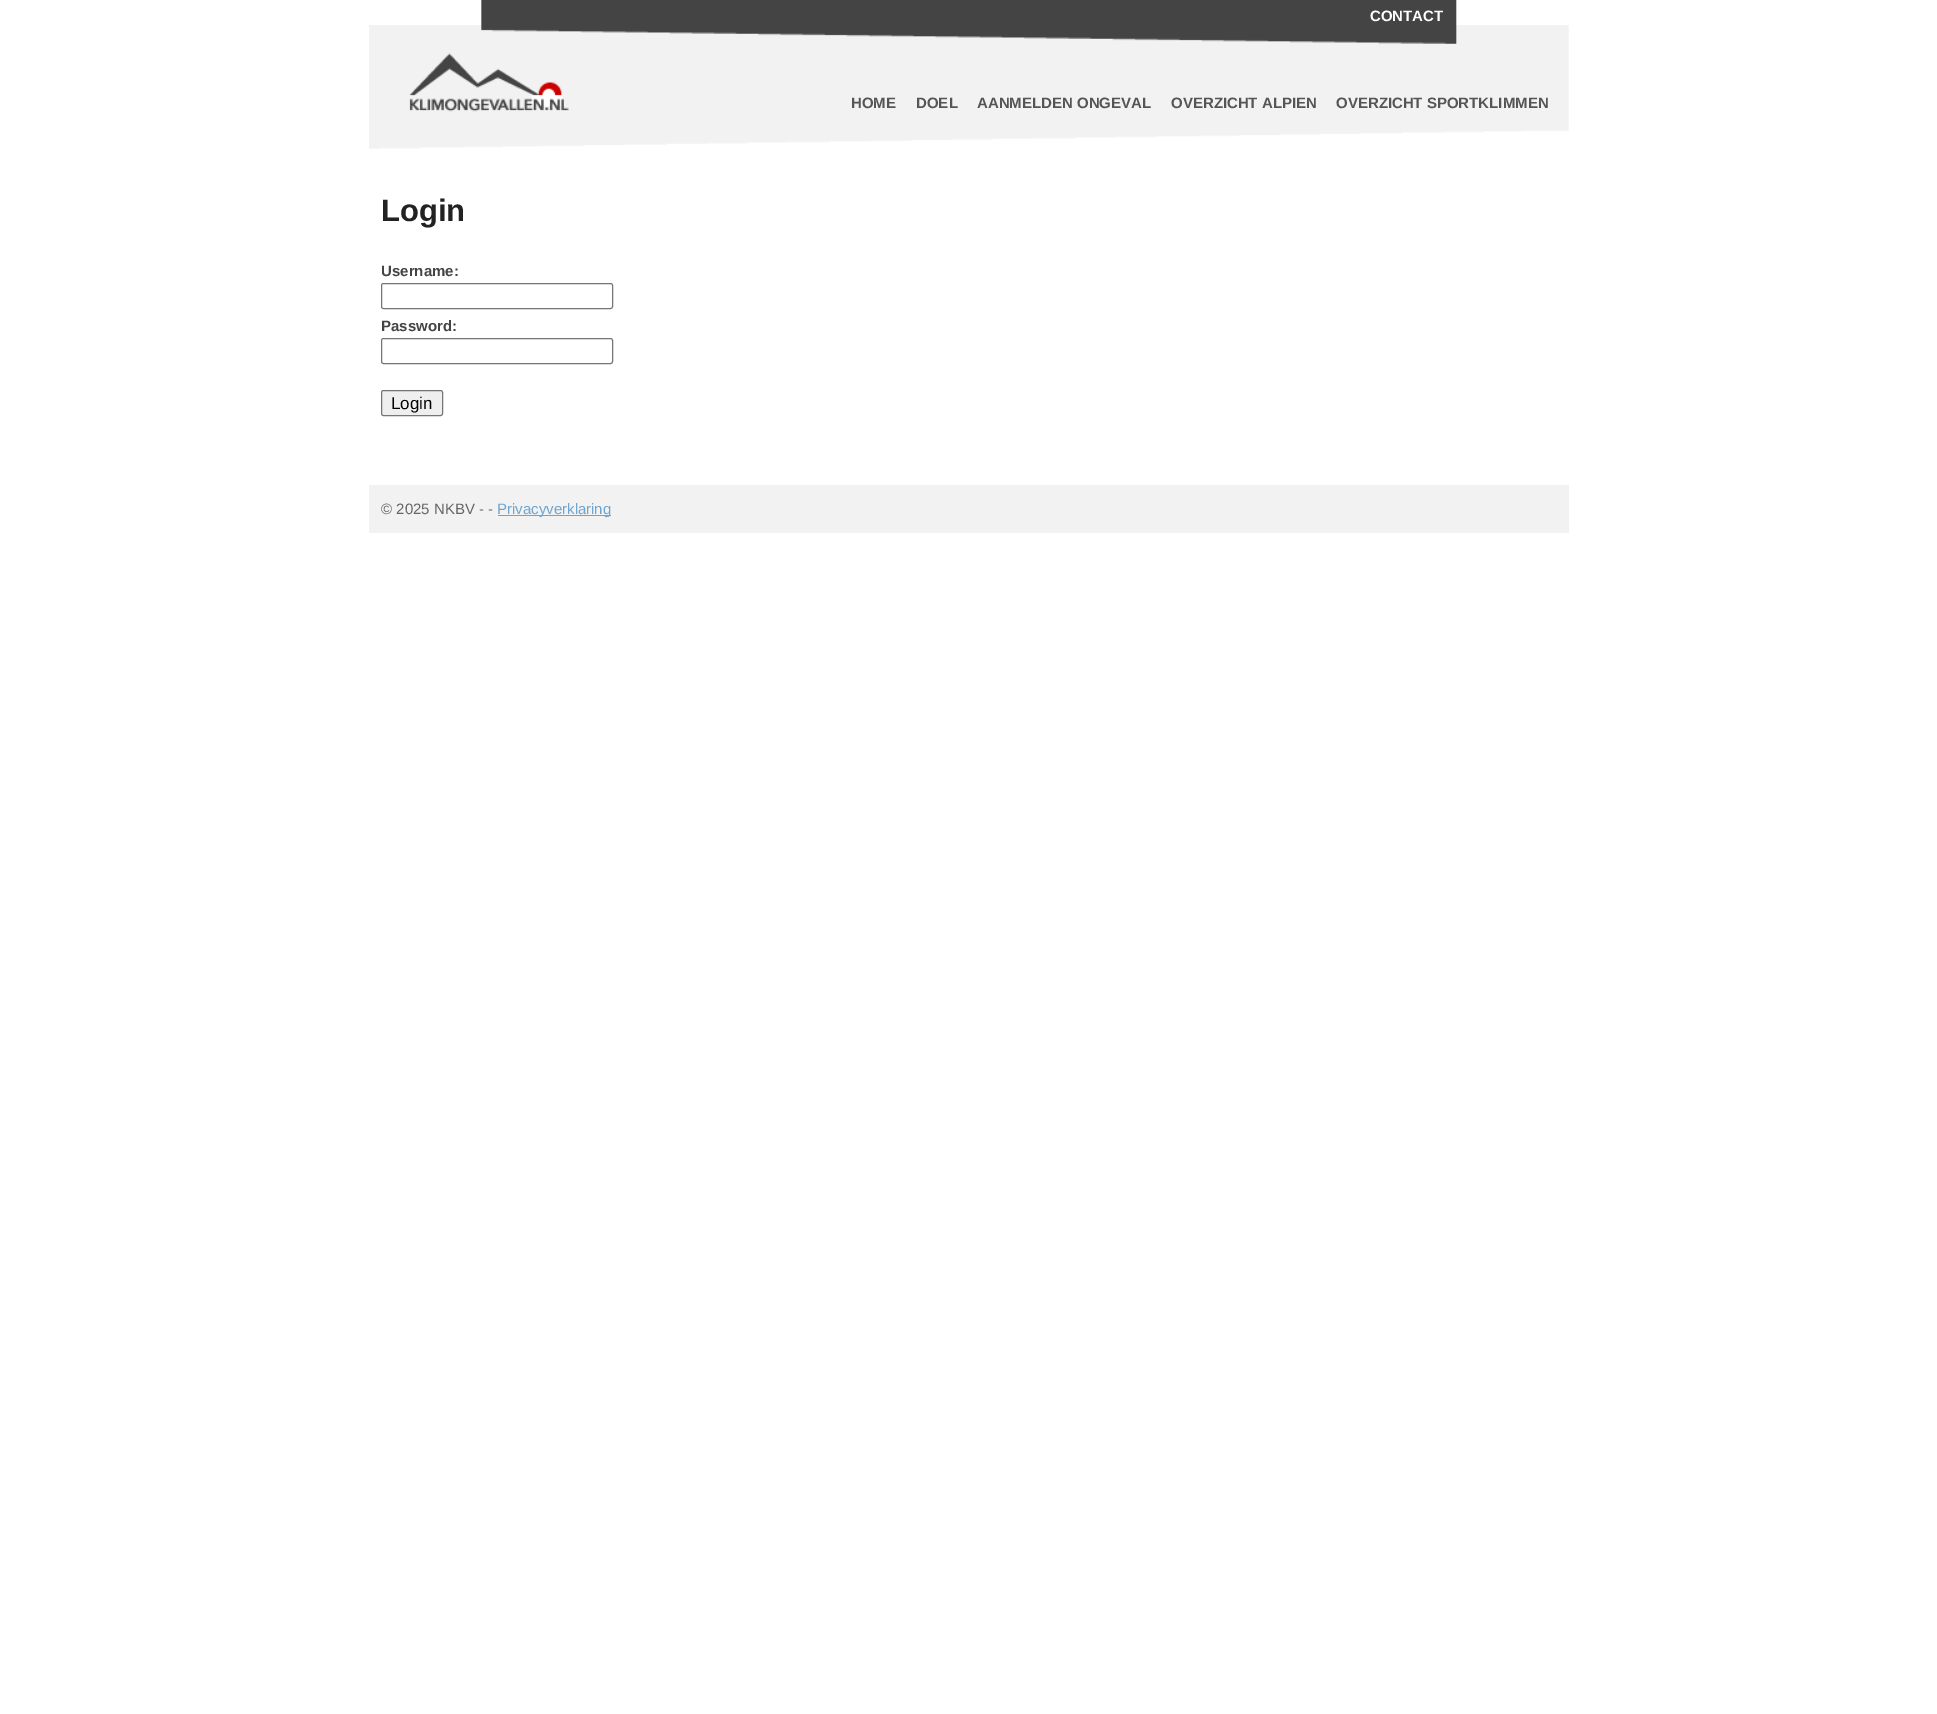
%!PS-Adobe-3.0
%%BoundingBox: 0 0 1937 1714
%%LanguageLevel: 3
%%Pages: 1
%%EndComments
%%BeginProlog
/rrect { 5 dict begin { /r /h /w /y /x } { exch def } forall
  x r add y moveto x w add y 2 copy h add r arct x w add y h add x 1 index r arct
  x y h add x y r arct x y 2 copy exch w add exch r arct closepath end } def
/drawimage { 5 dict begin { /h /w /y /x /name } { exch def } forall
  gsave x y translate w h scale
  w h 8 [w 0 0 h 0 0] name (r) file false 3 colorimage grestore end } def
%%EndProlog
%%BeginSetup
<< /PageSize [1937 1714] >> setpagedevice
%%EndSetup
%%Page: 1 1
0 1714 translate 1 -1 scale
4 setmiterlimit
1 setgray
0 0 1937 1714 rectfill
(images/1.raw) 369 0 1200 149 drawimage
0.463 setgray
381.5 283.5 231 25 2 rrect stroke
381.5 338.5 231 25 2 rrect stroke
0.937 setgray
381.5 390.5 61 25 2 rrect gsave fill grestore
0.463 setgray
stroke
0.949 setgray
369 485 1200 48 rectfill
0.431 0.647 0.816 setrgbcolor
498 515 113 1 rectfill
/LiberationSans-Bold [15 0 0 -15 0 0] selectfont
1 setgray
1370 21 moveto (CONTACT) show
0.333 setgray
851 108 moveto (HOME) show
916 108 moveto (DOEL) show
977 108 moveto (AANMELDEN ONGEVAL) show
1171 108 moveto (OVERZICHT ALPIEN) show
1336 108 moveto (OVERZICHT SPORTKLIMMEN) show
/LiberationSans-Bold [31 0 0 -31 0 0] selectfont
0.133 setgray
381 221 moveto (Login) show
/LiberationSans-Bold [15 0 0 -15 0 0] selectfont
0.267 setgray
381 276 moveto (Username:) show
381 331 moveto (Password:) show
/LiberationSans-Regular [17 0 0 -17 0 0] selectfont
0 setgray
391 409 moveto (Login) show
/LiberationSans-Regular [15 0 0 -15 0 0] selectfont
0.4 setgray
381 514 moveto (© 2025 NKBV - -) show
0.431 0.647 0.816 setrgbcolor
497 514 moveto (Privacyverklaring) show
showpage
%%EOF
